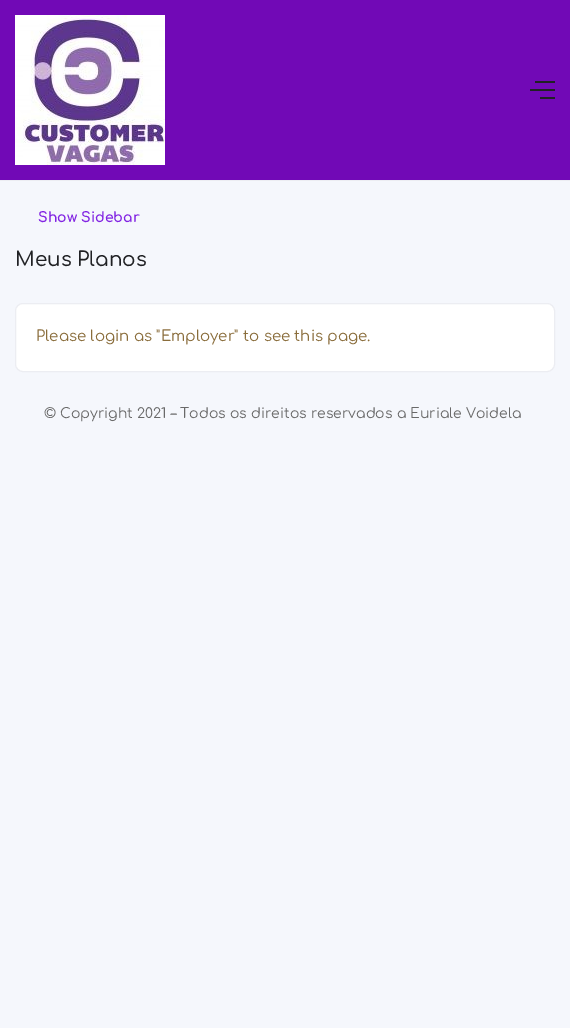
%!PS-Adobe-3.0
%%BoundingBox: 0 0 570 1028
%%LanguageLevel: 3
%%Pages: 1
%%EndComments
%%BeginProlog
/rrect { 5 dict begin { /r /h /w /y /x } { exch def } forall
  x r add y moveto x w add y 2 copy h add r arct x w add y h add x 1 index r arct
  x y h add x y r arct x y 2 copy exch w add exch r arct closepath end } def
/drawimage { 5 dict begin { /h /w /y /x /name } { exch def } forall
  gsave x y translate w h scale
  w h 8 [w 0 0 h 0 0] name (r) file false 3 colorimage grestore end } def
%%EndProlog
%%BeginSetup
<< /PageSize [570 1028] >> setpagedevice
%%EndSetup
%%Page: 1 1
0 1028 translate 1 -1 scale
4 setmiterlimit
0.961 0.969 0.988 setrgbcolor
0 0 570 1028 rectfill
0.443 0.035 0.714 setrgbcolor
0 0 570 180 rectfill
0.925 0.929 0.949 setrgbcolor
0 180 570 1 rectfill
(images/1.raw) 15 15 150 150 drawimage
0.125 0.129 0.141 setrgbcolor
535 81 20 2 rectfill
530 89 25 2 rectfill
540 97 15 2 rectfill
1 setgray
15.5 303.5 539 68 7.5 rrect gsave fill grestore
0.925 0.929 0.949 setrgbcolor
stroke
/Comfortaa-Bold [14 0 0 -14 0 0] selectfont
0.51 0.141 0.89 setrgbcolor
38 222 moveto (Show Sidebar) show
/Comfortaa-Medium [20 0 0 -20 0 0] selectfont
0.125 0.129 0.141 setrgbcolor
15 266 moveto (Meus Planos) show
/Comfortaa-Regular [15 0 0 -15 0 0] selectfont
0.541 0.427 0.231 setrgbcolor
36 341 moveto (Please login as "Employer" to see this page.) show
/Comfortaa-Regular [14 0 0 -14 0 0] selectfont
0.412 setgray
44 418 moveto (© Copyright 2021 – Todos os direitos reservados a Euriale Voidela) show
showpage
%%EOF
